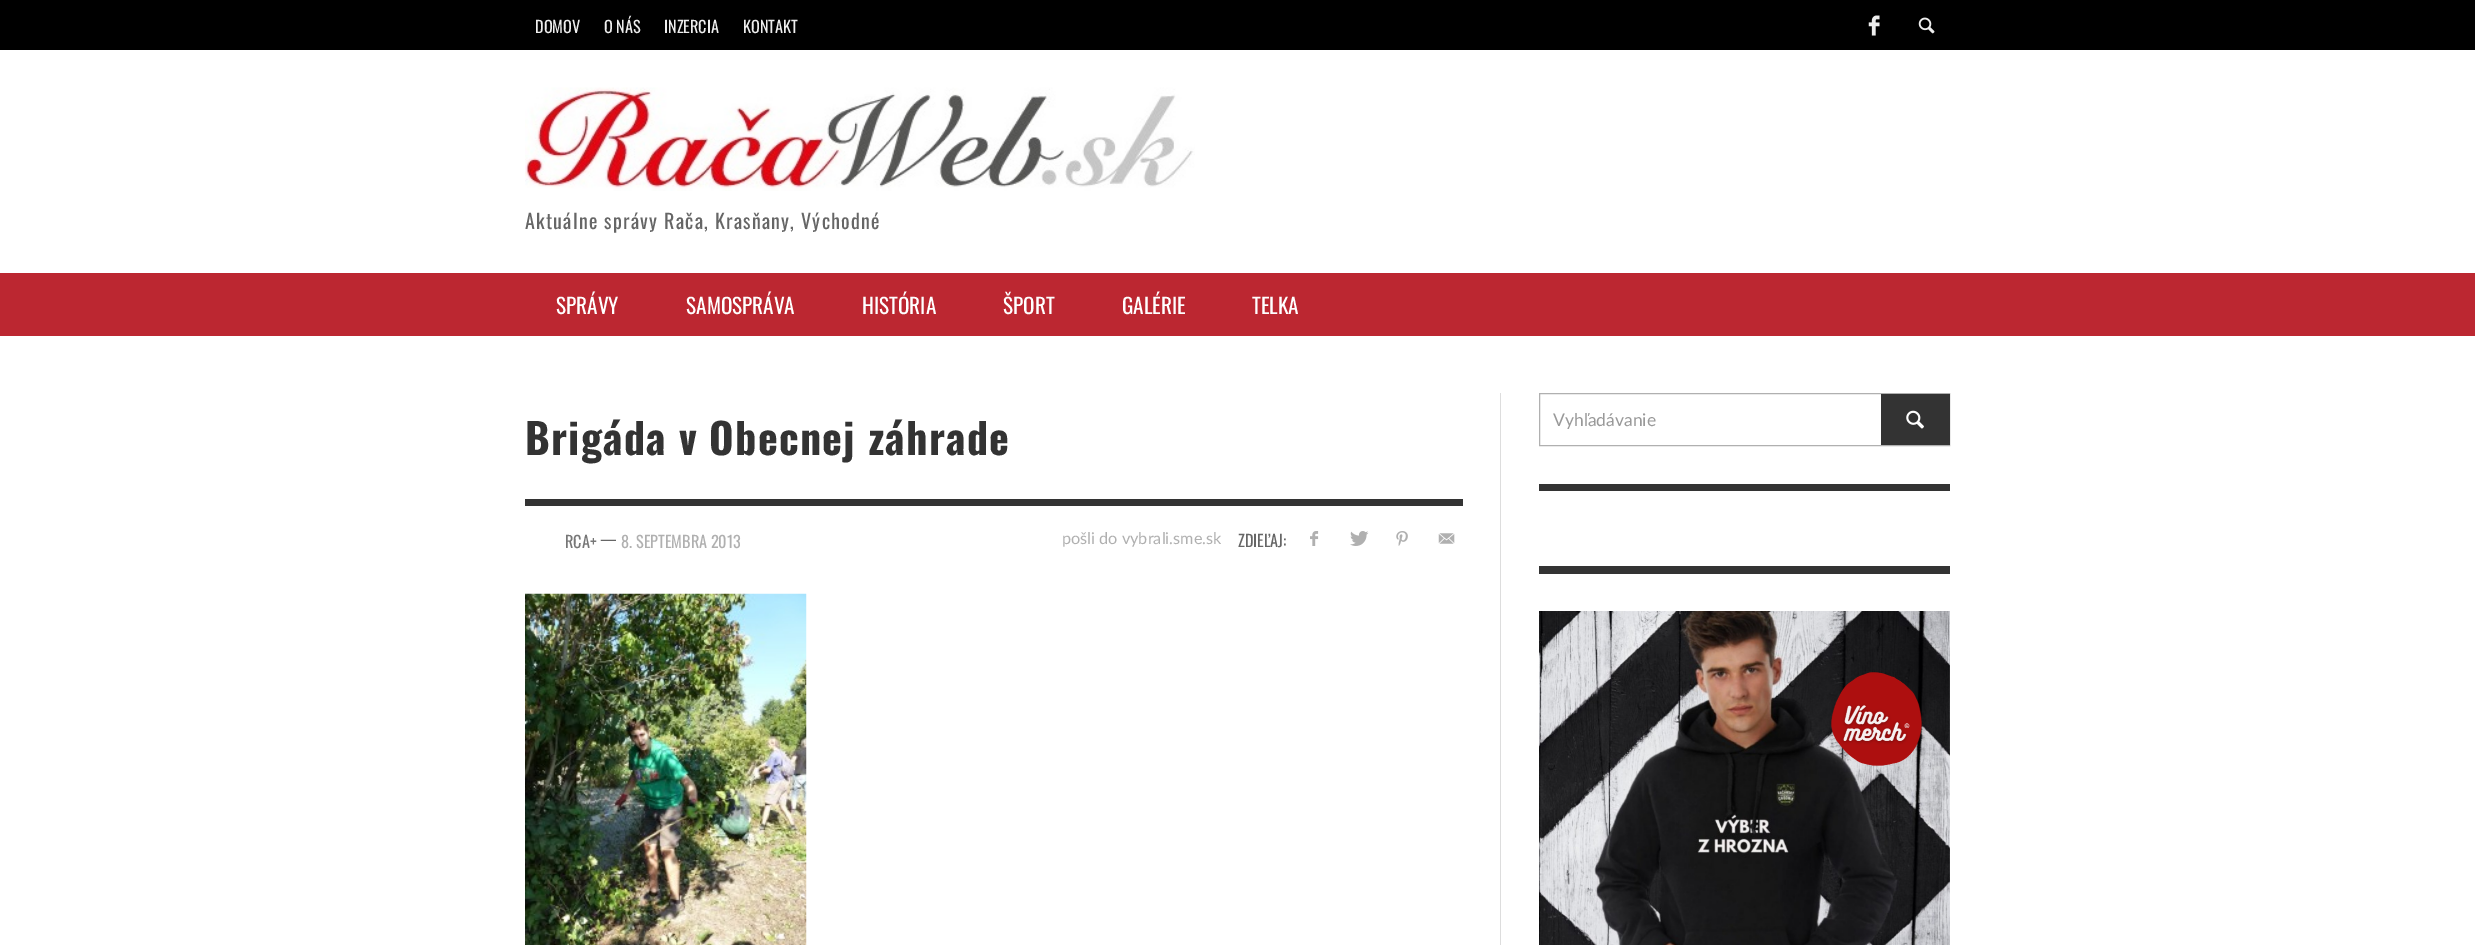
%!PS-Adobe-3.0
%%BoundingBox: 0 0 2475 945
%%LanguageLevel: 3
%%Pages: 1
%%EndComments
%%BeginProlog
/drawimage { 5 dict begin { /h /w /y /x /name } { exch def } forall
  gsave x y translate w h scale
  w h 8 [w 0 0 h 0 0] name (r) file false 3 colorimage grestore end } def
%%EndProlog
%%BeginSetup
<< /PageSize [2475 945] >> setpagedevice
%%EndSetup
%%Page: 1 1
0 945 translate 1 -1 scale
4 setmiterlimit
1 setgray
0 0 2475 945 rectfill
0 setgray
0 0 2475 50 rectfill
(images/1.raw) 1868 15 12 21 drawimage
(images/2.raw) 1918 17 17 17 drawimage
(images/3.raw) 525 87 670 104 drawimage
0.737 0.153 0.192 setrgbcolor
0 273 2475 63 rectfill
0.2 setgray
525 499 938 7 rectfill
(images/4.raw) 1310 531 9 15 drawimage
(images/5.raw) 1350 531 19 15 drawimage
(images/6.raw) 1396 531 12 15 drawimage
(images/7.raw) 1438 533 17 11 drawimage
(images/8.raw) 525 593 282 352 drawimage
0.867 setgray
1500 393 1 552 rectfill
0.69 setgray
1539.5 393.5 410 52 rectstroke
0.2 setgray
1881 394 69 51 rectfill
(images/9.raw) 1906 410 18 19 drawimage
1539 484 411 7 rectfill
1539 566 411 8 rectfill
(images/10.raw) 1539 611 411 334 drawimage
/Oswald-Regular [16.25 0 0 -16.25 0 0] selectfont
0.933 setgray
535 33 moveto (DOMOV) show
604 33 moveto (O NÁS) show
664 33 moveto (INZERCIA) show
743 33 moveto (KONTAKT) show
/Oswald-Regular [20 0 0 -20 0 0] selectfont
0.4 setgray
525 229 moveto 1.25 0 (Aktuálne správy Rača, Krasňany, Východné) ashow
/Oswald-Regular [21.25 0 0 -21.25 0 0] selectfont
1 setgray
556 314 moveto (SPRÁVY) show
686 314 moveto (SAMOSPRÁVA) show
862 314 moveto (HISTÓRIA) show
1003 314 moveto (ŠPORT) show
1122 314 moveto (GALÉRIE) show
1252 314 moveto (TELKA) show
/Oswald-Bold [42 0 0 -42 0 0] selectfont
0.2 setgray
525 455 moveto 1.25 0 (Brigáda v Obecnej záhrade) ashow
/Oswald-Regular [16.25 0 0 -16.25 0 0] selectfont
0.467 setgray
565 548 moveto (RCA+) show
0.4 setgray
600 545 moveto (—) show
0.69 setgray
621 548 moveto (8. SEPTEMBRA 2013) show
/Lato-Regular [16.25 0 0 -16.25 0 0] selectfont
1062 544 moveto (pošli do vybrali.sme.sk) show
/Oswald-Regular [16.25 0 0 -16.25 0 0] selectfont
0.4 setgray
1238 547 moveto (ZDIEĽAJ:) show
/Lato-Regular [17.5 0 0 -17.5 0 0] selectfont
0.6 setgray
1553 426 moveto (Vyhľadávanie) show
showpage
%%EOF
